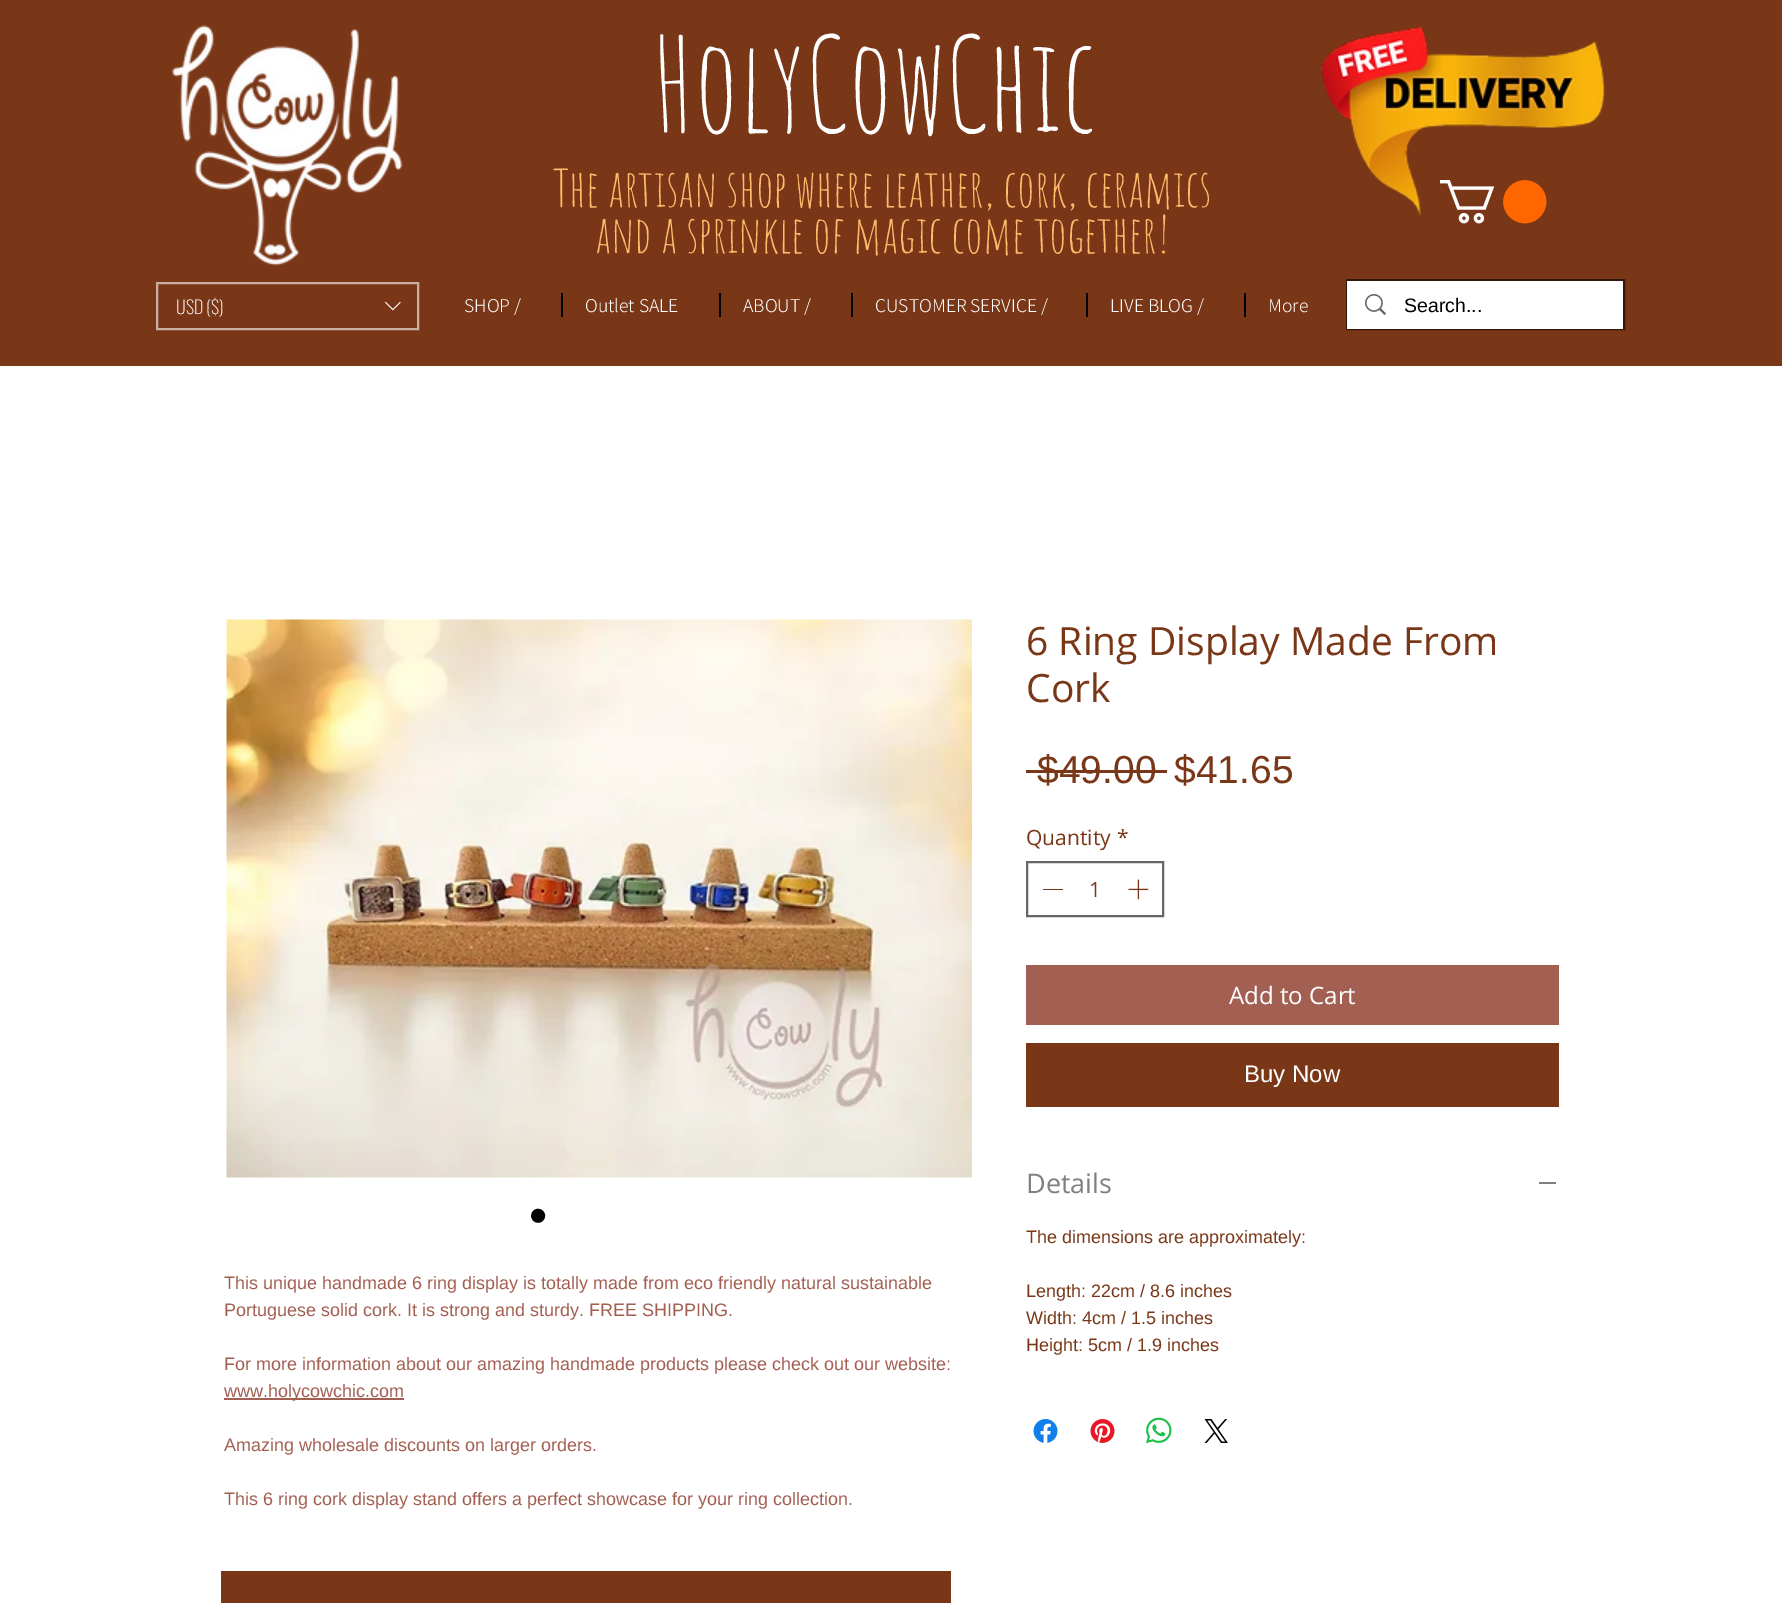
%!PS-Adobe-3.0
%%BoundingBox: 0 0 1782 1603
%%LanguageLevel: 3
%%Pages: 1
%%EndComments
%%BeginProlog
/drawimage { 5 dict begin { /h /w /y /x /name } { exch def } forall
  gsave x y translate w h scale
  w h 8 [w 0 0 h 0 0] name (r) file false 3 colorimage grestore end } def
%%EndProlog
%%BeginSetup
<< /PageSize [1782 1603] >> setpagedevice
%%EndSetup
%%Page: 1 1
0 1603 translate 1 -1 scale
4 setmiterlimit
1 setgray
0 0 1782 1603 rectfill
0.478 0.216 0.09 setrgbcolor
0 0 1782 366 rectfill
(images/1.raw) 172 25 231 241 drawimage
(images/2.raw) 1321 26 284 191 drawimage
(images/3.raw) 1440 180 107 44 drawimage
0.792 0.686 0.635 setrgbcolor
2 setlinewidth
157 283 261 46 rectstroke
(images/4.raw) 385 301 16 10 drawimage
0 setgray
561 293 2 24 rectfill
719 293 2 24 rectfill
851 293 2 24 rectfill
1086 293 2 24 rectfill
1244 293 2 24 rectfill
0.192 0.086 0.035 setrgbcolor
1347 280 277 49 rectstroke
1 setgray
1347 281 276 48 rectfill
(images/5.raw) 1365 294 21 21 drawimage
(images/6.raw) 226 619 746 559 drawimage
0.643 0.373 0.325 setrgbcolor
224 1398 180 2 rectfill
0.478 0.216 0.09 setrgbcolor
1026 770 141 3 rectfill
0.4 setgray
1027 862 136 54 rectstroke
0.478 0.216 0.09 setrgbcolor
1043 889 20 1 rectfill
(images/7.raw) 1128 879 21 21 drawimage
0.643 0.373 0.325 setrgbcolor
1026 965 533 60 rectfill
0.478 0.216 0.09 setrgbcolor
1026 1043 533 64 rectfill
0.502 setgray
1539 1182 17 2 rectfill
(images/8.raw) 1033 1419 25 24 drawimage
(images/9.raw) 1090 1419 25 24 drawimage
(images/10.raw) 1146 1417 26 27 drawimage
(images/11.raw) 1204 1419 24 24 drawimage
0.478 0.216 0.09 setrgbcolor
221 1571 730 32 rectfill
/AmaticSC-Regular [129 0 0 -129 0 0] selectfont
1 setgray
652 132 moveto (HolyCowChic) show
/AmaticSC-Regular [51 0 0 -51 0 0] selectfont
1 0.729 0.424 setrgbcolor
553 207 moveto (The artisan shop where leather, cork, ceramics) show
595 253 moveto (and a sprinkle of magic come together!) show
/Oswald-ExtraLight [18 0 0 -18 0 0] selectfont
1 setgray
176 314 moveto (USD \($\)) show
/Assistant-Light [19.5 0 0 -19.5 0 0] selectfont
464 312 moveto (SHOP /) show
585 312 moveto (Outlet SALE) show
743 312 moveto (ABOUT /) show
875 312 moveto (CUSTOMER SERVICE /) show
1110 312 moveto (LIVE BLOG /) show
1268 312 moveto (More) show
/LiberationSans-Regular [19.5 0 0 -19.5 0 0] selectfont
0 setgray
1404 312 moveto (Search...) show
/LiberationSans-Regular [52 0 0 -52 0 0] selectfont
529 1233 moveto (•) show
/LiberationSans-Regular [18 0 0 -18 0 0] selectfont
0.643 0.373 0.325 setrgbcolor
224 1289 moveto (This unique handmade 6 ring display is totally made from eco friendly natural sustainable) show
224 1316 moveto (Portuguese solid cork. It is strong and sturdy. FREE SHIPPING.) show
224 1370 moveto (For more information about our amazing handmade products please check out our website:) show
224 1397 moveto (www.holycowchic.com) show
224 1451 moveto (Amazing wholesale discounts on larger orders.) show
224 1505 moveto (This 6 ring cork display stand offers a perfect showcase for your ring collection.) show
/OpenSans-Regular [39 0 0 -39 0 0] selectfont
0.478 0.216 0.09 setrgbcolor
1026 655 moveto (6 Ring Display Made From) show
1026 702 moveto (Cork) show
/LiberationSans-Regular [39 0 0 -39 0 0] selectfont
1037 783 moveto ($49.00) show
1174 783 moveto ($41.65) show
/OpenSans-Regular [21 0 0 -21 0 0] selectfont
1026 845 moveto (Quantity) show
1117 845 moveto (*) show
1089 897 moveto (1) show
/OpenSans-Regular [24 0 0 -24 0 0] selectfont
1 setgray
1229 1004 moveto (Add to Cart) show
/LiberationSans-Regular [24 0 0 -24 0 0] selectfont
1244 1082 moveto (Buy Now) show
/OpenSans-Regular [27 0 0 -27 0 0] selectfont
0.502 setgray
1026 1193 moveto (Details) show
/LiberationSans-Regular [18 0 0 -18 0 0] selectfont
0.478 0.216 0.09 setrgbcolor
1026 1243 moveto (The dimensions are approximately:) show
1026 1297 moveto (Length: 22cm / 8.6 inches) show
1026 1324 moveto (Width: 4cm / 1.5 inches) show
1026 1351 moveto (Height: 5cm / 1.9 inches) show
showpage
%%EOF
